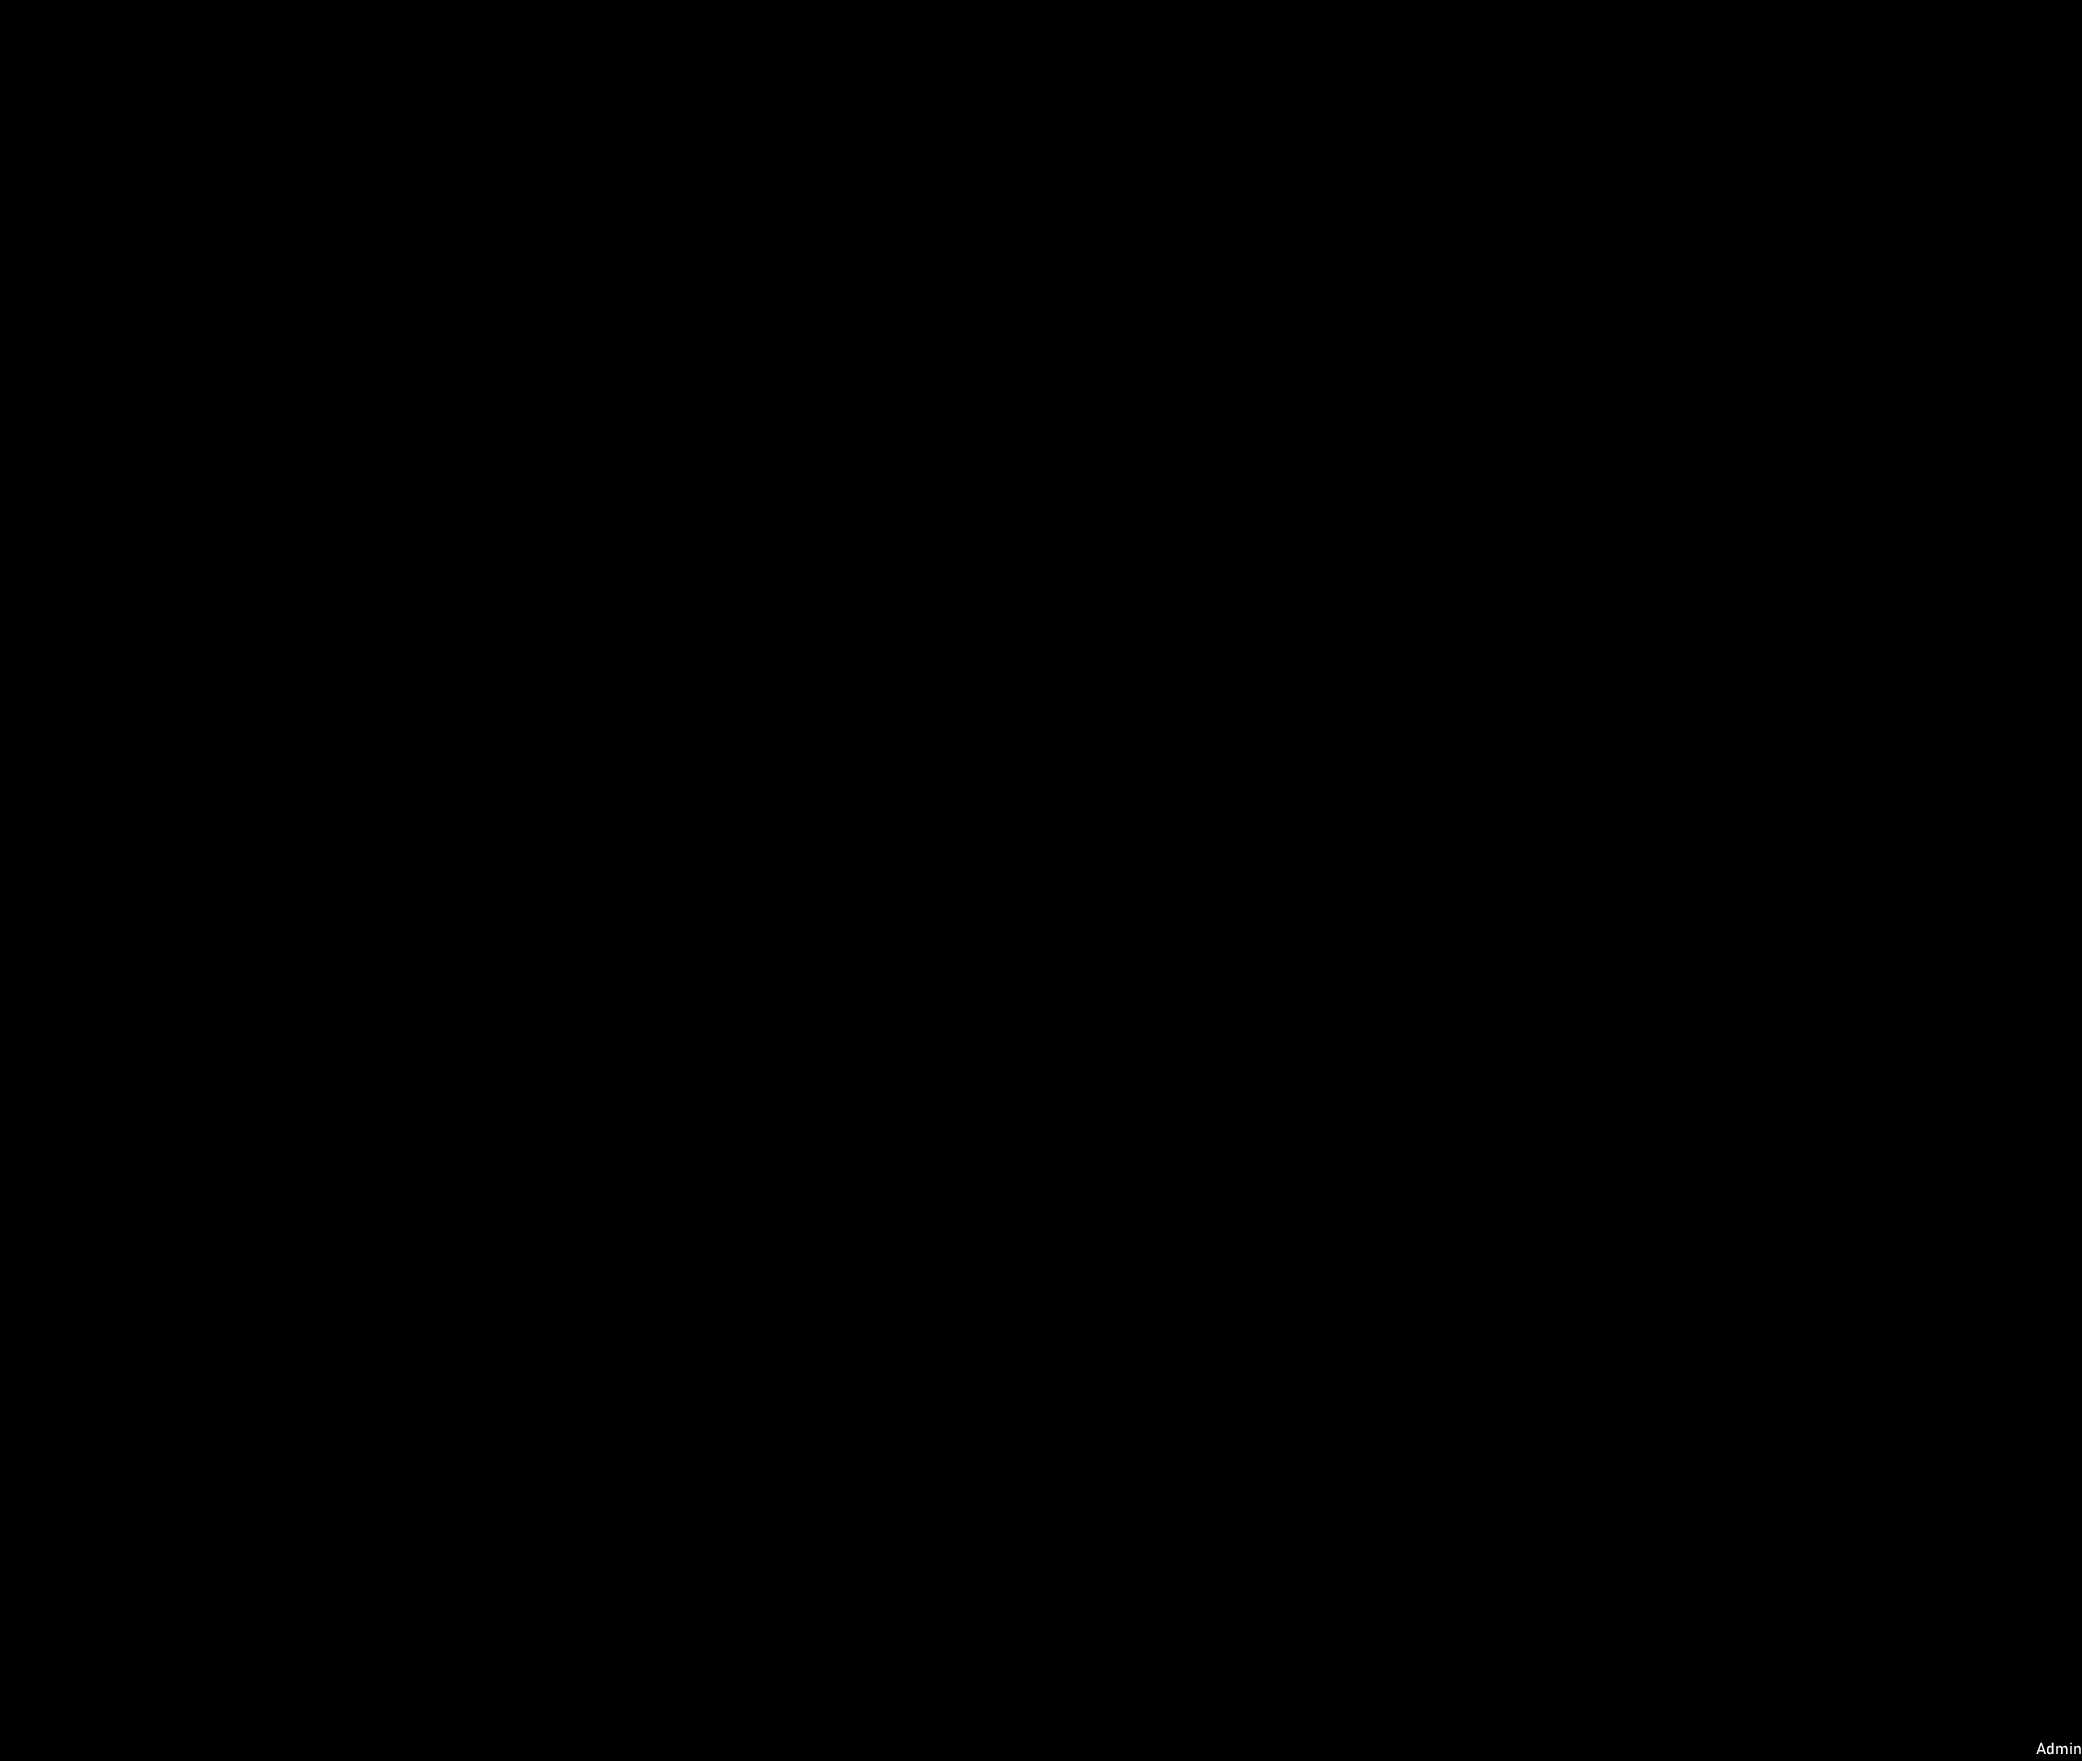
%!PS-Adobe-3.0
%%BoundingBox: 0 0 2082 1761
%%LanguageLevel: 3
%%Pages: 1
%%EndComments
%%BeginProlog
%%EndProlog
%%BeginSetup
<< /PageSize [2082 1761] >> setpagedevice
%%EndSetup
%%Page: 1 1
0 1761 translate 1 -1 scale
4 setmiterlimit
0 setgray
0 0 2082 1761 rectfill
/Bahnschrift-Regular [16 0 0 -16 0 0] selectfont
1 setgray
2036 1754 moveto (Admin) show
showpage
%%EOF
